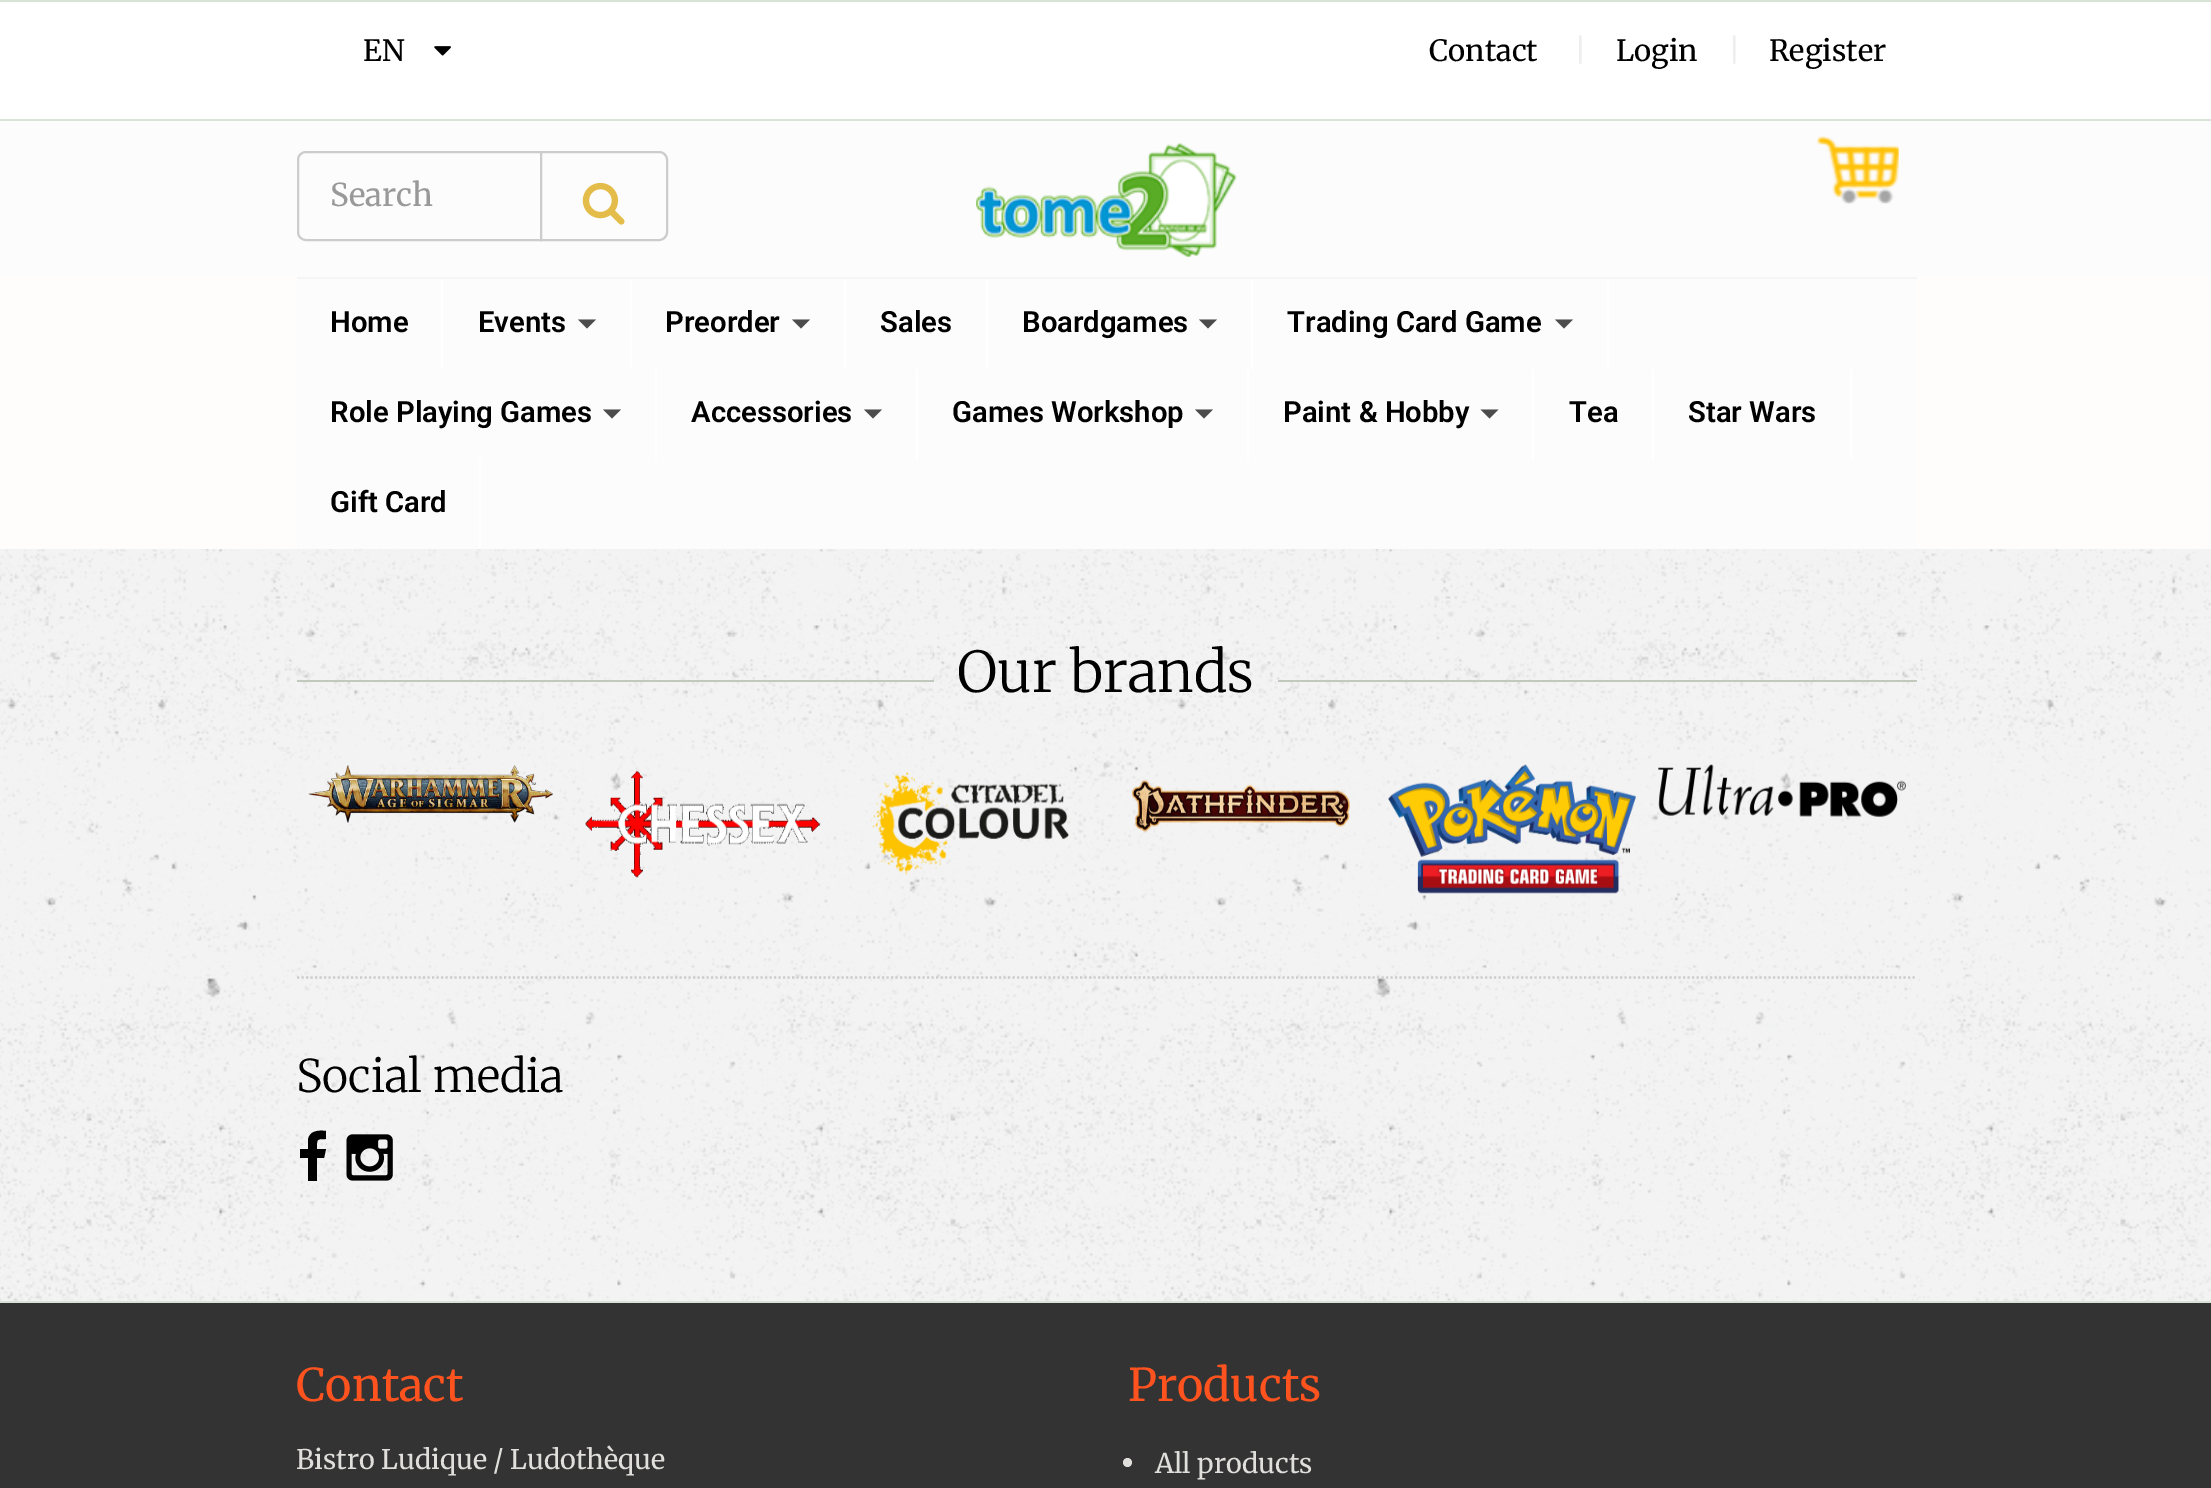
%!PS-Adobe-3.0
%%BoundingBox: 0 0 2211 1488
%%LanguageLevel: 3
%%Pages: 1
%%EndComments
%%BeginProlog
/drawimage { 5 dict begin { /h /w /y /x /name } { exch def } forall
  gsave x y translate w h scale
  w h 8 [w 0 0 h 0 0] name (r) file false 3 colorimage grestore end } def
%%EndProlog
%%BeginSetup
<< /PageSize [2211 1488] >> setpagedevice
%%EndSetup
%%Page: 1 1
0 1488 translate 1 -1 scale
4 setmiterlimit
0.953 setgray
0 0 2211 1488 rectfill
(images/1.raw) 0 549 2211 752 drawimage
0.988 setgray
0 121 2211 156 rectfill
1 setgray
0 2 2211 117 rectfill
0.855 0.89 0.843 setrgbcolor
0 0 2211 2 rectfill
(images/2.raw) 434 46 17 10 drawimage
0 119 2211 2 rectfill
0.8 setgray
2 setlinewidth
newpath 306 152 moveto 541 152 lineto 541 240 lineto 306 240 lineto 301.5 240 298 236.5 298 232 curveto 298 160 lineto 298 155.5 301.5 152 306 152 curveto closepath stroke
0.988 setgray
newpath 541 152 moveto 659 152 lineto 663.5 152 667 155.5 667 160 curveto 667 232 lineto 667 236.5 663.5 240 659 240 curveto 541 240 lineto closepath gsave fill grestore
0.8 setgray
stroke
(images/3.raw) 582 182 43 43 drawimage
(images/4.raw) 976 143 261 114 drawimage
(images/5.raw) 1817 135 82 69 drawimage
1 0.988 0.988 setrgbcolor
0 277 2211 272 rectfill
0.961 setgray
297 277 1620 2 rectfill
0.988 setgray
297 279 1620 270 rectfill
1 setgray
441 279 2 90 rectfill
630 279 2 90 rectfill
0.298 setgray
newpath 578 319.5 moveto 596 319.5 lineto 587 328.5 lineto closepath fill
1 setgray
844 279 2 90 rectfill
0.298 setgray
newpath 792 319.5 moveto 810 319.5 lineto 801 328.5 lineto closepath fill
1 setgray
986 279 2 90 rectfill
1251 279 2 90 rectfill
0.298 setgray
newpath 1199 319.5 moveto 1217 319.5 lineto 1208 328.5 lineto closepath fill
1 setgray
1607 279 2 90 rectfill
0.298 setgray
newpath 1555 319.5 moveto 1573 319.5 lineto 1564 328.5 lineto closepath fill
1 setgray
655 369 2 90 rectfill
0.298 setgray
newpath 603 409.5 moveto 621 409.5 lineto 612 418.5 lineto closepath fill
1 setgray
916 369 2 90 rectfill
0.298 setgray
newpath 864 409.5 moveto 882 409.5 lineto 873 418.5 lineto closepath fill
1 setgray
1247 369 2 90 rectfill
0.298 setgray
newpath 1195 409.5 moveto 1213 409.5 lineto 1204 418.5 lineto closepath fill
1 setgray
1532 369 2 90 rectfill
0.298 setgray
newpath 1480.5 409.5 moveto 1498.5 409.5 lineto 1489.5 418.5 lineto closepath fill
1 setgray
1652 369 2 90 rectfill
1850 369 2 90 rectfill
479 459 2 90 rectfill
0.757 0.788 0.749 setrgbcolor
297 680 1620 2 rectfill
0.953 setgray
934 648 344 52 rectfill
(images/6.raw) 933 647 345 53 drawimage
0.8 setgray
2.2 setlinewidth
[2.25 2.25] 0 setdash
newpath 297 977.5 moveto 1917 977.5 lineto stroke
(images/7.raw) 308 765 245 58 drawimage
(images/8.raw) 585 770 236 108 drawimage
(images/9.raw) 870 771 199 104 drawimage
(images/10.raw) 1131 779 219 53 drawimage
(images/11.raw) 1388 764 248 130 drawimage
(images/12.raw) 1658 764 248 53 drawimage
0 setgray
newpath 326 1131 moveto 326 1139 lineto 316 1139 317 1139 317 1149 curveto 326 1149 lineto 324 1158 lineto 317 1158 lineto 317 1181 lineto 308 1181 lineto 308 1158 lineto 300 1158 lineto 300 1149 lineto 308 1149 lineto 308 1140 lineto 309 1131 318 1130 326 1131 curveto closepath fill
(images/13.raw) 346 1134 47 47 drawimage
0.2 setgray
0 1303 2211 185 rectfill
0.855 0.89 0.843 setrgbcolor
0 1301 2211 2 rectfill
0.878 0.875 0.863 setrgbcolor
newpath 1127.5 1462.5 4.5 0 360 arc closepath fill
/Merriweather-Regular [29.25 0 0 -29.25 0 0] selectfont
0 setgray
363 61 moveto (EN) show
1429 61 moveto (Contact) show
0.933 setgray
1574 61 moveto (|) show
0 setgray
1616 61 moveto (Login) show
0.933 setgray
1728 61 moveto (|) show
0 setgray
1769 61 moveto (Register) show
/Merriweather-Regular [31.5 0 0 -31.5 0 0] selectfont
0.6 setgray
330 206 moveto (Search) show
/Roboto-SemiBold [29.25 0 0 -29.25 0 0] selectfont
0 setgray
330 332 moveto (Home) show
478 332 moveto (Events) show
665 332 moveto (Preorder) show
880 332 moveto (Sales) show
1022 332 moveto (Boardgames) show
1287 332 moveto (Trading Card Game) show
330 422 moveto (Role Playing Games) show
691 422 moveto (Accessories) show
952 422 moveto (Games Workshop) show
1283 422 moveto (Paint & Hobby) show
1569 422 moveto (Tea) show
1688 422 moveto (Star Wars) show
330 512 moveto (Gift Card) show
/Merriweather-Light [56.25 0 0 -56.25 0 0] selectfont
957 692 moveto (Our brands) show
/Merriweather-Light [45 0 0 -45 0 0] selectfont
296 1092 moveto (Social media) show
/Merriweather-Regular [45 0 0 -45 0 0] selectfont
1 0.325 0.122 setrgbcolor
296 1401 moveto (Contact) show
/Merriweather-Regular [27 0 0 -27 0 0] selectfont
0.878 0.875 0.863 setrgbcolor
296 1469 moveto (Bistro Ludique / Ludothèque) show
/Merriweather-Regular [45 0 0 -45 0 0] selectfont
1 0.325 0.122 setrgbcolor
1128 1401 moveto (Products) show
/Merriweather-Regular [27 0 0 -27 0 0] selectfont
0.878 0.875 0.863 setrgbcolor
1155 1473 moveto (All products) show
showpage
%%EOF
